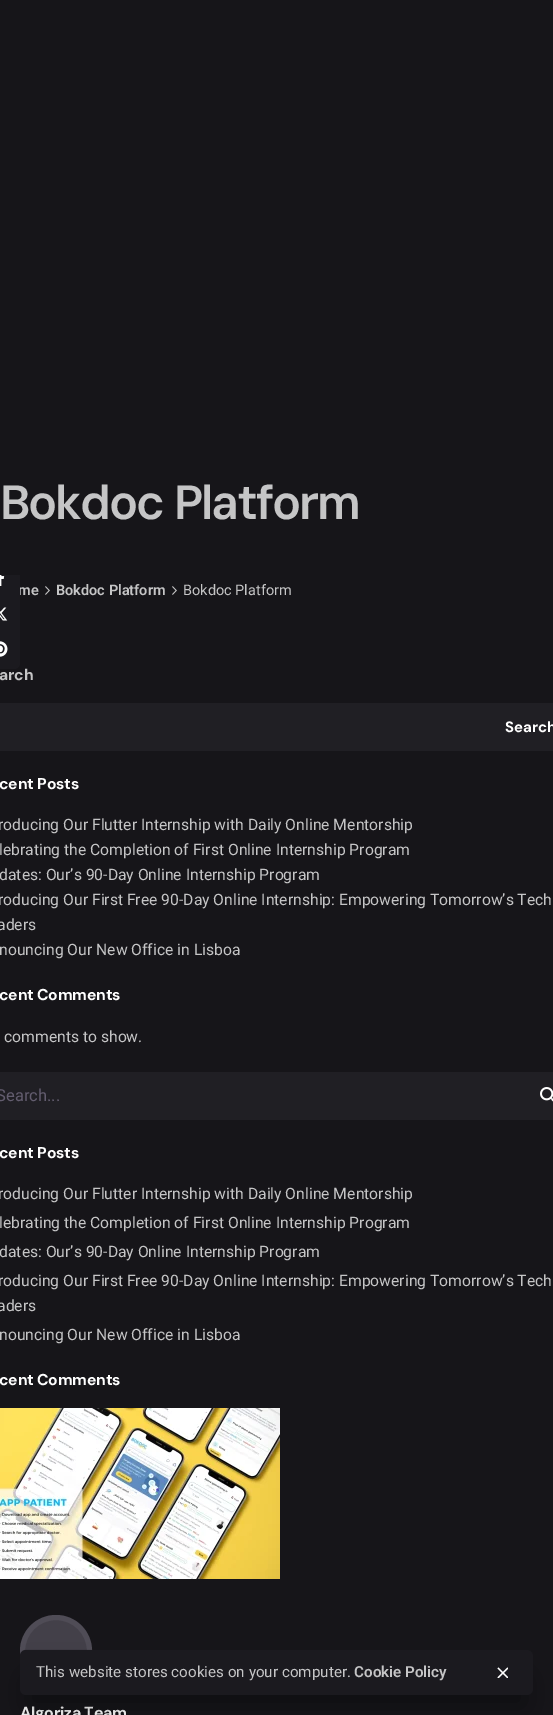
%!PS-Adobe-3.0
%%BoundingBox: 0 0 553 1715
%%LanguageLevel: 3
%%Pages: 1
%%EndComments
%%BeginProlog
/setink { dup -16 bitshift 255 div exch dup -8 bitshift 255 and 255 div exch 255 and 255 div setrgbcolor } def
/usefont { [ exch dup neg 0 0 3 -1 roll 0 0 ] selectfont } def
/setalpha { dup .setfillconstantalpha .setstrokeconstantalpha } def
/disc { newpath 0 360 arc closepath } def
/rrect { 5 dict begin { /r /h /w /y /x } { exch def } forall
  x r add y moveto x w add y 2 copy h add r arct x w add y h add x 1 index r arct
  x y h add x y r arct x y 2 copy exch w add exch r arct closepath end } def
/softshadow { 12 dict begin { /a /b /q /h /w /y /x } { exch def } forall gsave /was 0 def
  9 -2 -9 { dup b mul 4 div /e exch def 1 sub .425 mul 2.718 exch exp 1 add a .99 .min exch div /now exch def
    1 1 now sub 1 was sub div sub setalpha /was now def
    w h .min e 2 mul add 0 gt { x e sub y e sub w e 2 mul add h e 2 mul add
      q e add b .6 mul add w h .min 2 div e add .min 0 .max rrect fill } if } for grestore end } def
/drawimage { 5 dict begin { /h /w /y /x /name } { exch def } forall
  gsave x y translate w h scale
  w h 8 [w 0 0 h 0 0] name (r) file false 3 colorimage grestore end } def
%%EndProlog
%%BeginSetup
<< /PageSize [553 1715] /PageUsesTransparency true >> setpagedevice
%%EndSetup
%%Page: 1 1
0 .pushpdf14devicefilter
0 1715 translate 1 -1 scale
4 setmiterlimit
16#161519 setink
0 0 553 1715 rectfill
/DMSans-SemiBold 48 usefont
16#C5C5C6 setink
0 519 moveto 2 0 32 -2.2 0 (Bokdoc Platform) awidthshow
/Roboto-SemiBold 14.5 usefont
18 595 moveto (me) show
16#1B1A1F setink
-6 559 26 110 6 rrect fill
16#161519 setink
0 559 20 16 rectfill
(img1.raw) 0 575 5 11 drawimage
(img2.raw) 0 607 8 14 drawimage
(img3.raw) 0 641 8 16 drawimage
(img4.raw) 45 586 5 9 drawimage
16#C5C5C6 setink
56 595 moveto (Bokdoc Platform) show
(img4.raw) 172 586 5 9 drawimage
/Roboto-Regular 14.5 usefont
183 595 moveto (Bokdoc Platform) show
/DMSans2-Bold 15.7 usefont
-1 680 moveto -0.2 0 (arch) ashow
16#201F24 setink
0 703 553 48 rectfill
/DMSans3-Bold 15 usefont
16#FFFFFF setink
505 732 moveto (Search) show
/DMSans2-Bold 15.7 usefont
-1 789 moveto -0.2 0 (cent Posts) ashow
/Roboto-Regular 15.7 usefont
16#C5C5C6 setink
[
    [(roducing Our Flutter Internship with Daily Online Mentorship) -2 830]
    [(lebrating the Completion of First Online Internship Program) -1 855]
    [(dates: Our’s 90-Day Online Internship Program) -1 880]
    [(roducing Our First Free 90-Day Online Internship: Empowering Tomorrow’s Tech) -2 905]
    [(aders) -3 930]
    [(nouncing Our New Office in Lisboa) -1 955]
] { aload pop moveto show } forall
/DMSans2-Bold 15.7 usefont
16#FFFFFF setink
-1 1000 moveto -0.2 0 (cent Comments) ashow
/Roboto-Regular 15.7 usefont
16#C5C5C6 setink
4 1042 moveto (comments to show.) show
16#201F24 setink
0 1072 553 48 rectfill
/Roboto-Regular 16.5 usefont
16#635D6F setink
-4 1101 moveto (Search...) show
(img5.raw) 540 1087 13 15 drawimage
/DMSans2-Bold 15.7 usefont
16#FFFFFF setink
-1 1158 moveto -0.2 0 (cent Posts) ashow
/Roboto-Regular 15.7 usefont
16#C5C5C6 setink
[
    [(roducing Our Flutter Internship with Daily Online Mentorship) -2 1199]
    [(lebrating the Completion of First Online Internship Program) -1 1228]
    [(dates: Our’s 90-Day Online Internship Program) -1 1257]
    [(roducing Our First Free 90-Day Online Internship: Empowering Tomorrow’s Tech) -2 1286]
    [(aders) -3 1311]
    [(nouncing Our New Office in Lisboa) -1 1340]
] { aload pop moveto show } forall
/DMSans2-Bold 15.7 usefont
16#FFFFFF setink
-1 1385 moveto -0.2 0 (cent Comments) ashow
(img6.raw) 0 1408 280 171 drawimage
16#434049 setink
56 1651 36 disc fill
0.15 setalpha
16#9690A2 setink
5 setlinewidth
56 1651 33.5 disc stroke
/DMSans-Bold 16 usefont
1 setalpha
16#FFFFFF setink
20 1718 moveto -0.25 0 (Algoriza Team) ashow
16#000000 setink
20 1650 513 45 6 0.5 0.25 softshadow
28 1678 497 29 0 16 0.35 softshadow
16#1B1A1F setink
20 1650 513 45 6 rrect fill
/Roboto-Regular 15.2 usefont
16#C5C5C6 setink
36 1677 moveto (This website stores cookies on your computer.) show
/Roboto-SemiBold 15.2 usefont
354 1677 moveto (Cookie Policy) show
(img7.raw) 497 1667 11 11 drawimage
.poppdf14devicefilter showpage
%%EOF
